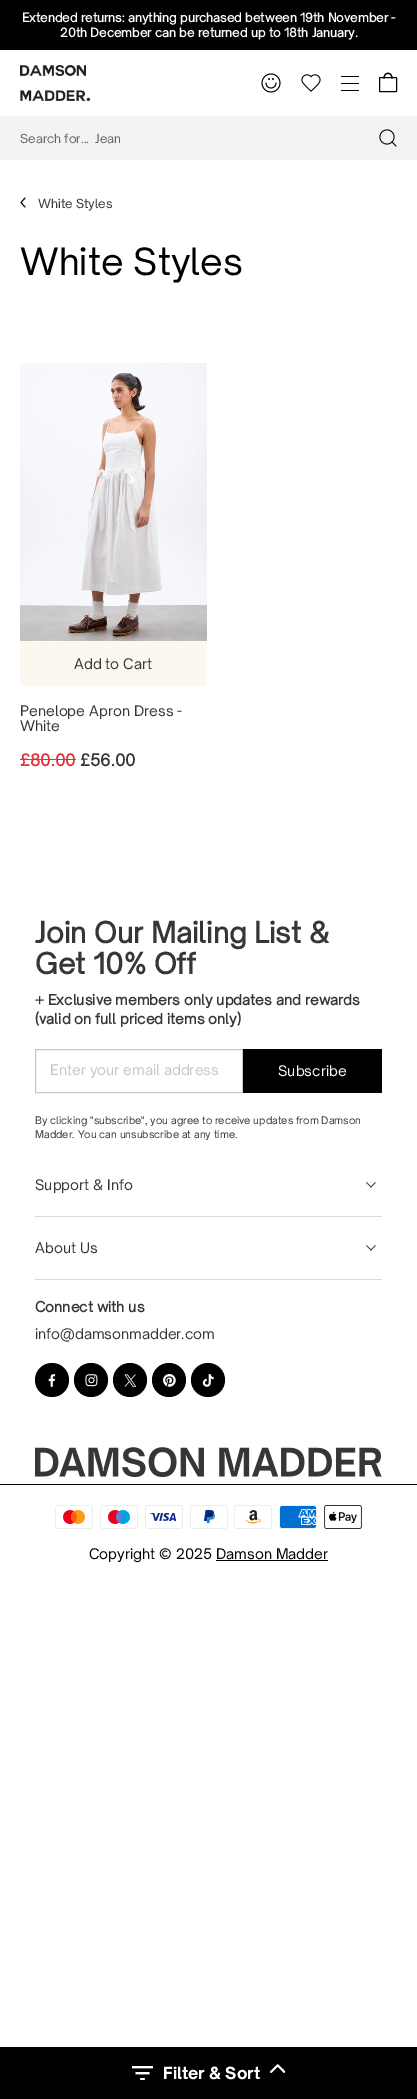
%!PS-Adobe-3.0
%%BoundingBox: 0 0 417 2099
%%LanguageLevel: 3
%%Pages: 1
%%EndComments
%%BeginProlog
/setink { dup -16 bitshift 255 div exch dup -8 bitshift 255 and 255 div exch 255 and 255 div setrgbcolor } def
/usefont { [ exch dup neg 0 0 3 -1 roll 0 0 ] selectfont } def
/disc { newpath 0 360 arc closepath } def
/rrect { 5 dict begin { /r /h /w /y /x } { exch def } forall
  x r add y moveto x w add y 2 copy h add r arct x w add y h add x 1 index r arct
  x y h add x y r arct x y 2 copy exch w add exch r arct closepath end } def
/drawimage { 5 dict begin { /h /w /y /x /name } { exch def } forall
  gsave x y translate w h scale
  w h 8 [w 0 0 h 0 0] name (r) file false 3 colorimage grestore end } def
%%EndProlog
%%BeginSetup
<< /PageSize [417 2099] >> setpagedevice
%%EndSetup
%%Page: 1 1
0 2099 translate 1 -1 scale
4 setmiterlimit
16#FFFFFF setink
0 0 417 2099 rectfill
16#000000 setink
0 0 417 50 rectfill
/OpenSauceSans-Bold 12 usefont
16#FFFFFF setink
22 22 moveto (Extended returns: anything purchased between 19th November -) show
60 37 moveto (20th December can be returned up to 18th January.) show
(img1.raw) 20 65 70 36 drawimage
(img2.raw) 261 73 20 20 drawimage
(img3.raw) 301 74 20 18 drawimage
[
    [341 76 18 1 16#000000]
    [341 83 18 1 16#000000]
    [341 90 18 1 16#000000]
] { aload pop setink rectfill } forall
379.5 77.5 17 14 0.5 rrect stroke
1.2 setlinewidth
1 setlinecap
1 setlinejoin
384 78 moveto 384 71.5 392 71.5 392 78 curveto stroke
16#F3F3F3 setink
0 116 417 44 rectfill
/OpenSauceSans-Regular 12 usefont
16#666666 setink
20 143 moveto (Search for...) show
95 143 moveto (Jean) show
(img4.raw) 379 129 18 18 drawimage
16#111111 setink
1 setlinewidth
25 198 moveto 21 202.5 lineto 25 207 lineto stroke
16#363636 setink
38 208 moveto (White Styles) show
/OpenSauceSans-Regular 36 usefont
16#000000 setink
20 275 moveto (White Styles) show
(img5.raw) 20 363 187 278 drawimage
16#FDF8EF setink
20 641 187 45 rectfill
/OpenSauceSans-Regular 14 usefont
16#363636 setink
[
    [(Add to Cart) 74 669]
    [(Penelope Apron Dress -) 20 716]
    [(White) 20 731]
] { aload pop moveto show } forall
/OpenSauceSans-Bold 16 usefont
16#DC323B setink
20 766 moveto (£80.00) show
20 759 56 1 rectfill
16#363636 setink
80 766 moveto (£56.00) show
16#000000 setink
0 2047 417 52 rectfill
(img6.raw) 132 2066 21 14 drawimage
/OpenSauceSans-ExtraBold 16 usefont
16#FFFFFF setink
163 2079 moveto (Filter & Sort) show
(img7.raw) 270 2064 15 9 drawimage
/OpenSauceSans-Bold 28 usefont
16#363636 setink
35 943 moveto (Join Our Mailing List &) show
35 974 moveto (Get 10% Off) show
/OpenSauceSans-Bold 14 usefont
35 1005 moveto (+ Exclusive members only updates and rewards) show
35 1024 moveto (\(valid on full priced items only\)) show
16#C7C7C7 setink
0 setlinecap
0 setlinejoin
35.5 1049.5 207 43 rectstroke
/OpenSauceSans-Regular 14 usefont
50 1075 moveto (Enter your email address) show
16#000000 setink
243 1049 139 44 rectfill
16#FFFFFF setink
278 1076 moveto (Subscribe) show
/OpenSauceSans-Regular 10 usefont
16#363636 setink
35 1124 moveto (By clicking "subscribe", you agree to receive updates from Damson) show
35 1138 moveto (Madder. You can unsubscribe at any time.) show
16#D9D9D9 setink
35 1216 347 1 rectfill
/OpenSauceSans-Regular 14 usefont
16#363636 setink
35 1190 moveto (Support & Info) show
(img8.raw) 366 1182 10 6 drawimage
16#D9D9D9 setink
35 1279 347 1 rectfill
16#363636 setink
35 1253 moveto (About Us) show
(img8.raw) 366 1245 10 6 drawimage
/OpenSauceSans-Bold 14 usefont
35 1312 moveto (Connect with us) show
/OpenSauceSans-Regular 14 usefont
35 1339 moveto (info@damsonmadder.com) show
16#000000 setink
52 1380 17 disc fill
(img9.raw) 48 1374 8 13 drawimage
91 1380 17 disc fill
(img10.raw) 85 1374 13 13 drawimage
130 1380 17 disc fill
(img11.raw) 124 1374 12 13 drawimage
169 1380 17 disc fill
(img12.raw) 163 1374 13 13 drawimage
208 1380 17 disc fill
(img13.raw) 202 1374 12 13 drawimage
(img14.raw) 35 1447 347 31 drawimage
0 1484 417 1 rectfill
(img15.raw) 55 1505 38 24 drawimage
(img16.raw) 100 1505 38 24 drawimage
(img17.raw) 145 1505 38 24 drawimage
(img18.raw) 190 1505 38 24 drawimage
(img19.raw) 234 1505 38 24 drawimage
(img20.raw) 279 1505 38 24 drawimage
(img21.raw) 324 1505 38 24 drawimage
89 1559 moveto (Copyright © 2025 Damson Madder) show
216 1560 112 1 rectfill
showpage
%%EOF
